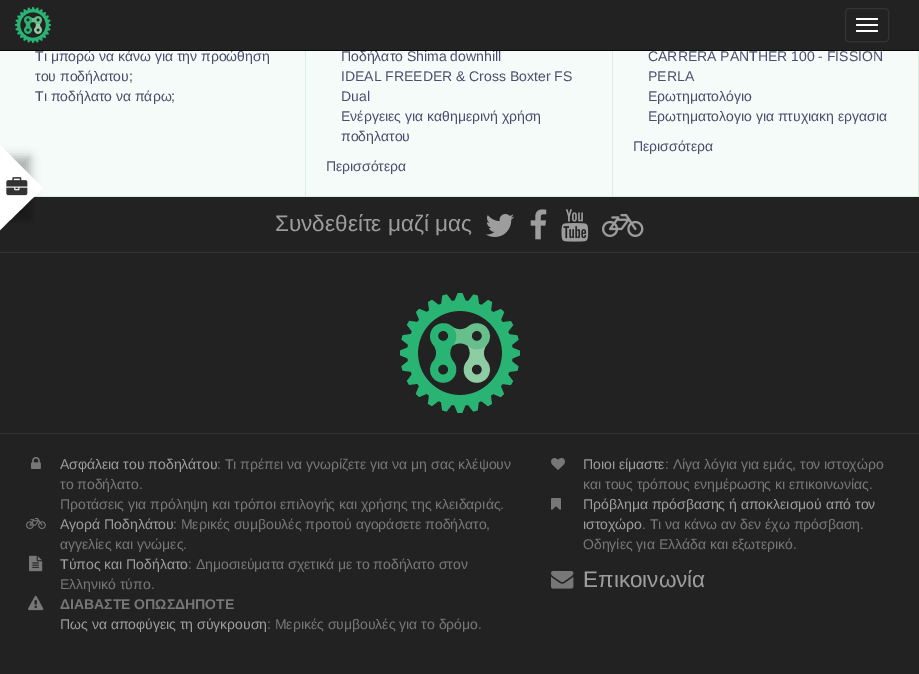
%!PS-Adobe-3.0
%%BoundingBox: 0 0 919 674
%%LanguageLevel: 3
%%Pages: 1
%%EndComments
%%BeginProlog
/setink { dup -16 bitshift 255 div exch dup -8 bitshift 255 and 255 div exch 255 and 255 div setrgbcolor } def
/usefont { [ exch dup neg 0 0 3 -1 roll 0 0 ] selectfont } def
/setalpha { dup .setfillconstantalpha .setstrokeconstantalpha } def
/rrect { 5 dict begin { /r /h /w /y /x } { exch def } forall
  x r add y moveto x w add y 2 copy h add r arct x w add y h add x 1 index r arct
  x y h add x y r arct x y 2 copy exch w add exch r arct closepath end } def
/softshadow { 12 dict begin { /a /b /q /h /w /y /x } { exch def } forall gsave /was 0 def
  9 -2 -9 { dup b mul 4 div /e exch def 1 sub .425 mul 2.718 exch exp 1 add a .99 .min exch div /now exch def
    1 1 now sub 1 was sub div sub setalpha /was now def
    w h .min e 2 mul add 0 gt { x e sub y e sub w e 2 mul add h e 2 mul add
      q e add b .6 mul add w h .min 2 div e add .min 0 .max rrect fill } if } for grestore end } def
/drawimage { 5 dict begin { /h /w /y /x /name } { exch def } forall
  gsave x y translate w h scale
  w h 8 [w 0 0 h 0 0] name (r) file false 3 colorimage grestore end } def
%%EndProlog
%%BeginSetup
<< /PageSize [919 674] /PageUsesTransparency true >> setpagedevice
%%EndSetup
%%Page: 1 1
0 .pushpdf14devicefilter
0 674 translate 1 -1 scale
4 setmiterlimit
16#222222 setink
0 0 919 674 rectfill
16#F4FBF8 setink
0 51 918 145 rectfill
/LiberationSans-Regular 14 usefont
16#4B4E6D setink
35 61 moveto (Τι μπορώ να κάνω για την προώθηση) show
341 61 moveto (Ποδήλατο Shima downhill) show
16#080808 setink
0 50 919 1 rectfill
(img1.raw) 15 7 36 36 drawimage
16#333333 setink
845.5 8.5 43 33 3.5 rrect stroke
16#FFFFFF setink
856 18 22 2 1 rrect fill
856 24 22 2 1 rrect fill
856 30 22 2 1 rrect fill
16#DBEEE6 setink
305 51 1 146 rectfill
33 196 273 1 rectfill
16#4B4E6D setink
35 81 moveto (του ποδήλατου;) show
35 101 moveto (Τι ποδήλατο να πάρω;) show
16#DBEEE6 setink
612 51 1 146 rectfill
306 196 307 1 rectfill
16#4B4E6D setink
[
    [(IDEAL FREEDER & Cross Boxter FS) 341 81]
    [(Dual) 341 101]
    [(Ενέργειες για καθημερινή χρήση) 341 121]
    [(ποδηλατου) 341 141]
    [(Περισσότερα) 326 171]
] { aload pop moveto show } forall
16#DBEEE6 setink
918 51 1 146 rectfill
613 196 306 1 rectfill
16#4B4E6D setink
[
    [(CARRERA PANTHER 100 - FISSION) 648 61]
    [(PERLA) 648 81]
    [(Ερωτηματολόγιο) 648 101]
    [(Ερωτηματολογιο για πτυχιακη εργασια) 648 121]
    [(Περισσότερα) 633 151]
] { aload pop moveto show } forall
16#000000 setink
-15 157 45 62 0 5 0.3 softshadow
16#FFFFFF setink
0 145 moveto 43 188 lineto -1 231 lineto -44 188 lineto closepath fill
(img2.raw) 6 177 22 19 drawimage
16#333333 setink
0 252 919 1 rectfill
/LiberationSans-Regular 22.5 usefont
16#9D9D9D setink
275 231 moveto (Συνδεθείτε μαζί μας) show
(img3.raw) 486 214 28 23 drawimage
(img4.raw) 530 209 17 31 drawimage
(img5.raw) 561 209 28 33 drawimage
(img6.raw) 602 214 42 23 drawimage
(img7.raw) 400 293 120 120 drawimage
16#333333 setink
0 433 919 1 rectfill
(img8.raw) 31 457 10 12 drawimage
/LiberationSans-Regular 14 usefont
16#9D9D9D setink
60 469 moveto (Ασφάλεια του ποδηλάτου) show
16#777777 setink
[
    [(: Tι πρέπει να γνωρίζετε για να μη σας κλέψουν) 217 469]
    [(το ποδήλατο.) 60 489]
    [(Προτάσεις για πρόληψη και τρόποι επιλογής και χρήσης της κλειδαριάς.) 60 509]
] { aload pop moveto show } forall
(img9.raw) 26 518 20 11 drawimage
16#9D9D9D setink
60 529 moveto (Αγορά Ποδηλάτου) show
16#777777 setink
173 529 moveto (: Μερικές συμβουλές προτού αγοράσετε ποδήλατο,) show
60 549 moveto (αγγελίες και γνώμες.) show
(img10.raw) 29 555 14 17 drawimage
16#9D9D9D setink
60 569 moveto (Τύπος και Ποδήλατο) show
16#777777 setink
188 569 moveto (: Δημοσιεύματα σχετικά με το ποδήλατο στον) show
60 589 moveto (Ελληνικό τύπο.) show
(img11.raw) 28 595 16 16 drawimage
/LiberationSans-Bold 14 usefont
60 609 moveto (ΔΙΑΒΑΣΤΕ ΟΠΩΣΔΗΠΟΤΕ) show
/LiberationSans-Regular 14 usefont
16#9D9D9D setink
60 629 moveto (Πως να αποφύγεις τη σύγκρουση) show
16#777777 setink
267 629 moveto (: Μερικές συμβουλές για το δρόμο.) show
(img12.raw) 551 458 14 12 drawimage
16#9D9D9D setink
583 469 moveto (Ποιοι είμαστε) show
16#777777 setink
665 469 moveto (: Λίγα λόγια για εμάς, τον ιστοχώρο) show
583 489 moveto (και τους τρόπους ενημέρωσης κι επικοινωνίας.) show
(img13.raw) 551 498 10 12 drawimage
16#9D9D9D setink
583 509 moveto (Πρόβλημα πρόσβασης ή αποκλεισμού από τον) show
583 529 moveto (ιστοχώρο) show
16#777777 setink
642 529 moveto (. Τι να κάνω αν δεν έχω πρόσβαση.) show
583 549 moveto (Οδηγίες για Ελλάδα και εξωτερικό.) show
(img14.raw) 551 571 23 18 drawimage
/LiberationSans-Regular 22.5 usefont
16#9D9D9D setink
583 587 moveto (Επικοινωνία) show
.poppdf14devicefilter showpage
%%EOF
